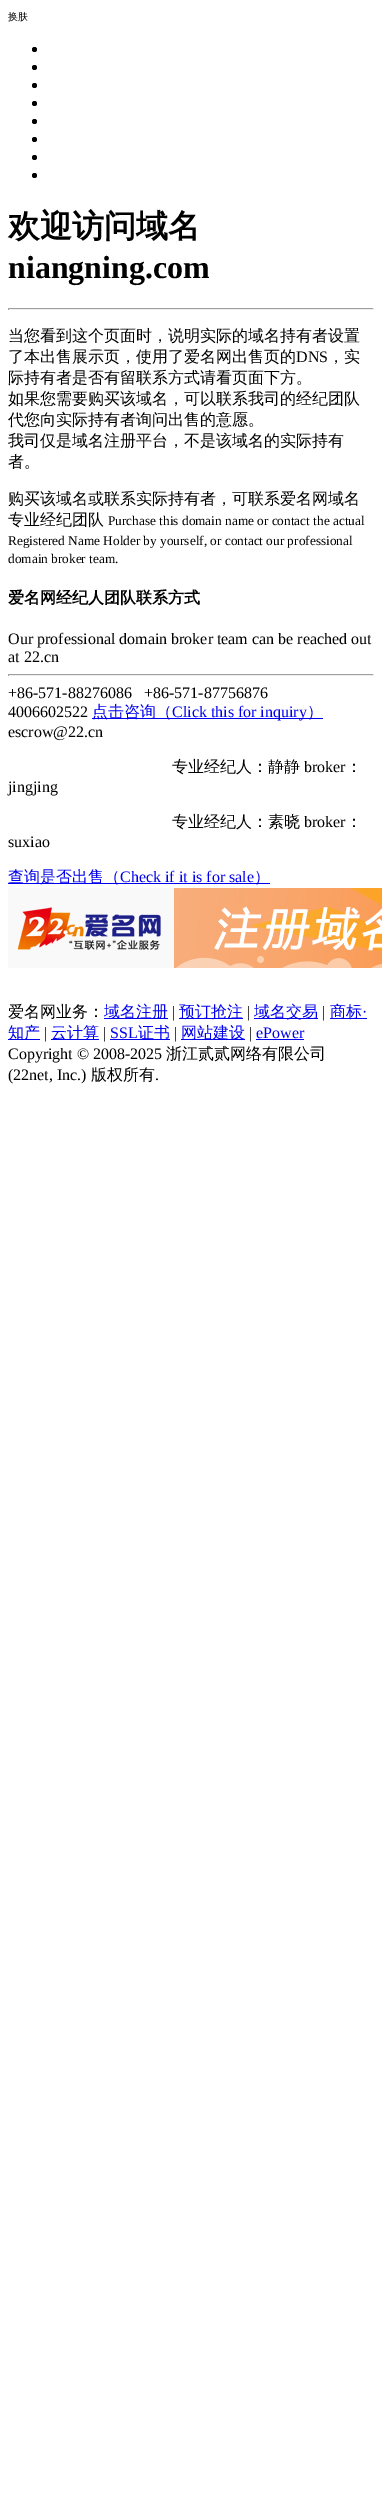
%!PS-Adobe-3.0
%%BoundingBox: 0 0 382 2516
%%LanguageLevel: 3
%%Pages: 1
%%EndComments
%%BeginProlog
/setink { dup -16 bitshift 255 div exch dup -8 bitshift 255 and 255 div exch 255 and 255 div setrgbcolor } def
/usefont { [ exch dup neg 0 0 3 -1 roll 0 0 ] selectfont } def
/disc { newpath 0 360 arc closepath } def
/drawimage { 5 dict begin { /h /w /y /x /name } { exch def } forall
  gsave x y translate w h scale
  w h 8 [w 0 0 h 0 0] name (r) file false 3 colorimage grestore end } def
%%EndProlog
%%BeginSetup
<< /PageSize [382 2516] >> setpagedevice
%%EndSetup
%%Page: 1 1
0 2516 translate 1 -1 scale
4 setmiterlimit
16#FFFFFF setink
0 0 382 2516 rectfill
/WenQuanYiZenHei-Medium 10 usefont
16#000000 setink
8 20 moveto (换肤) show
34.5 49.5 2.5 disc fill
34.5 67.5 2.5 disc fill
34.5 85.5 2.5 disc fill
34.5 103.5 2.5 disc fill
34.5 121.5 2.5 disc fill
34.5 139.5 2.5 disc fill
34.5 157.5 2.5 disc fill
34.5 175.5 2.5 disc fill
/WenQuanYiZenHei-Bold 32 usefont
8 237 moveto (欢迎访问域名) show
/LiberationSerif-Bold 32 usefont
8 278 moveto (niangning.com) show
[
    [8 308 366 1 16#9F9F9F]
    [373 308 1 2 16#EEEEEE]
    [8 309 366 1 16#EEEEEE]
    [8 308 1 2 16#9F9F9F]
] { aload pop setink rectfill } forall
/WenQuanYiZenHei-Medium 16 usefont
16#000000 setink
8 341 moveto (当您看到这个页面时，说明实际的域名持有者设置) show
8 362 moveto (了本出售展示页，使用了爱名网出售页的) show
/LiberationSerif-Regular 16 usefont
296 362 moveto (DNS) show
/WenQuanYiZenHei-Medium 16 usefont
[
    [(，实) 328 362]
    [(际持有者是否有留联系方式请看页面下方。) 8 383]
    [(如果您需要购买该域名，可以联系我司的经纪团队) 8 404]
    [(代您向实际持有者询问出售的意愿。) 8 425]
    [(我司仅是域名注册平台，不是该域名的实际持有) 8 446]
    [(者。) 8 467]
    [(购买该域名或联系实际持有者，可联系爱名网域名) 8 504]
    [(专业经纪团队) 8 525]
] { aload pop moveto show } forall
/LiberationSerif-Regular 13.3 usefont
[
    [(Purchase this domain name or contact the actual) 108 525]
    [(Registered Name Holder by yourself, or contact our professional) 8 545]
    [(domain broker team.) 8 563]
] { aload pop moveto show } forall
/WenQuanYiZenHei-Bold 16 usefont
8 603 moveto (爱名网经纪人团队联系方式) show
/LiberationSerif-Regular 16 usefont
8 644 moveto (Our professional domain broker team can be reached out) show
8 662 moveto (at 22.cn) show
[
    [8 674 366 1 16#9F9F9F]
    [373 674 1 2 16#EEEEEE]
    [8 675 366 1 16#EEEEEE]
    [8 674 1 2 16#9F9F9F]
] { aload pop setink rectfill } forall
16#000000 setink
[
    [(+86-571-88276086) 8 698]
    [(+86-571-87756876) 144 698]
    [(4006602522) 8 717]
] { aload pop moveto show } forall
16#0000EE setink
92 718 231 1 rectfill
/WenQuanYiZenHei-Medium 16 usefont
92 717 moveto (点击咨询（) show
/LiberationSerif-Regular 16 usefont
172 717 moveto (Click this for inquiry) show
/WenQuanYiZenHei-Medium 16 usefont
307 717 moveto (）) show
/LiberationSerif-Regular 16 usefont
16#000000 setink
8 737 moveto (escrow@22.cn) show
/WenQuanYiZenHei-Medium 16 usefont
172 772 moveto (专业经纪人：静静) show
/LiberationSerif-Regular 16 usefont
304 772 moveto (broker) show
/WenQuanYiZenHei-Medium 16 usefont
346 772 moveto (：) show
/LiberationSerif-Regular 16 usefont
8 792 moveto (jingjing) show
/WenQuanYiZenHei-Medium 16 usefont
172 827 moveto (专业经纪人：素晓) show
/LiberationSerif-Regular 16 usefont
304 827 moveto (broker) show
/WenQuanYiZenHei-Medium 16 usefont
346 827 moveto (：) show
/LiberationSerif-Regular 16 usefont
8 847 moveto (suxiao) show
16#0000EE setink
8 883 262 1 rectfill
/WenQuanYiZenHei-Medium 16 usefont
8 882 moveto (查询是否出售（) show
/LiberationSerif-Regular 16 usefont
120 882 moveto (Check if it is for sale) show
/WenQuanYiZenHei-Medium 16 usefont
254 882 moveto (）) show
(img1.raw) 8 888 374 80 drawimage
16#000000 setink
8 1017 moveto (爱名网业务：) show
16#0000EE setink
104 1018 64 1 rectfill
104 1017 moveto (域名注册) show
/LiberationSerif-Regular 16 usefont
16#000000 setink
172 1017 moveto (|) show
16#0000EE setink
179 1018 64 1 rectfill
/WenQuanYiZenHei-Medium 16 usefont
179 1017 moveto (预订抢注) show
/LiberationSerif-Regular 16 usefont
16#000000 setink
247 1017 moveto (|) show
16#0000EE setink
254 1018 64 1 rectfill
/WenQuanYiZenHei-Medium 16 usefont
254 1017 moveto (域名交易) show
/LiberationSerif-Regular 16 usefont
16#000000 setink
322 1017 moveto (|) show
16#0000EE setink
330 1018 37 1 rectfill
/WenQuanYiZenHei-Medium 16 usefont
330 1017 moveto (商标) show
/LiberationSerif-Regular 16 usefont
362 1017 moveto (·) show
8 1039 32 1 rectfill
/WenQuanYiZenHei-Medium 16 usefont
8 1038 moveto (知产) show
/LiberationSerif-Regular 16 usefont
16#000000 setink
44 1038 moveto (|) show
16#0000EE setink
51 1039 48 1 rectfill
/WenQuanYiZenHei-Medium 16 usefont
51 1038 moveto (云计算) show
/LiberationSerif-Regular 16 usefont
16#000000 setink
103 1038 moveto (|) show
16#0000EE setink
110 1038 moveto (SSL) show
110 1039 60 1 rectfill
/WenQuanYiZenHei-Medium 16 usefont
138 1038 moveto (证书) show
/LiberationSerif-Regular 16 usefont
16#000000 setink
174 1038 moveto (|) show
16#0000EE setink
181 1039 64 1 rectfill
/WenQuanYiZenHei-Medium 16 usefont
181 1038 moveto (网站建设) show
/LiberationSerif-Regular 16 usefont
16#000000 setink
249 1038 moveto (|) show
16#0000EE setink
256 1038 moveto (ePower) show
256 1039 48 1 rectfill
16#000000 setink
8 1059 moveto (Copyright © 2008-2025) show
/WenQuanYiZenHei-Medium 16 usefont
166 1059 moveto (浙江贰贰网络有限公司) show
/LiberationSerif-Regular 16 usefont
8 1080 moveto (\(22net, Inc.\)) show
/WenQuanYiZenHei-Medium 16 usefont
91 1080 moveto (版权所有) show
/LiberationSerif-Regular 16 usefont
155 1080 moveto (.) show
showpage
%%EOF
